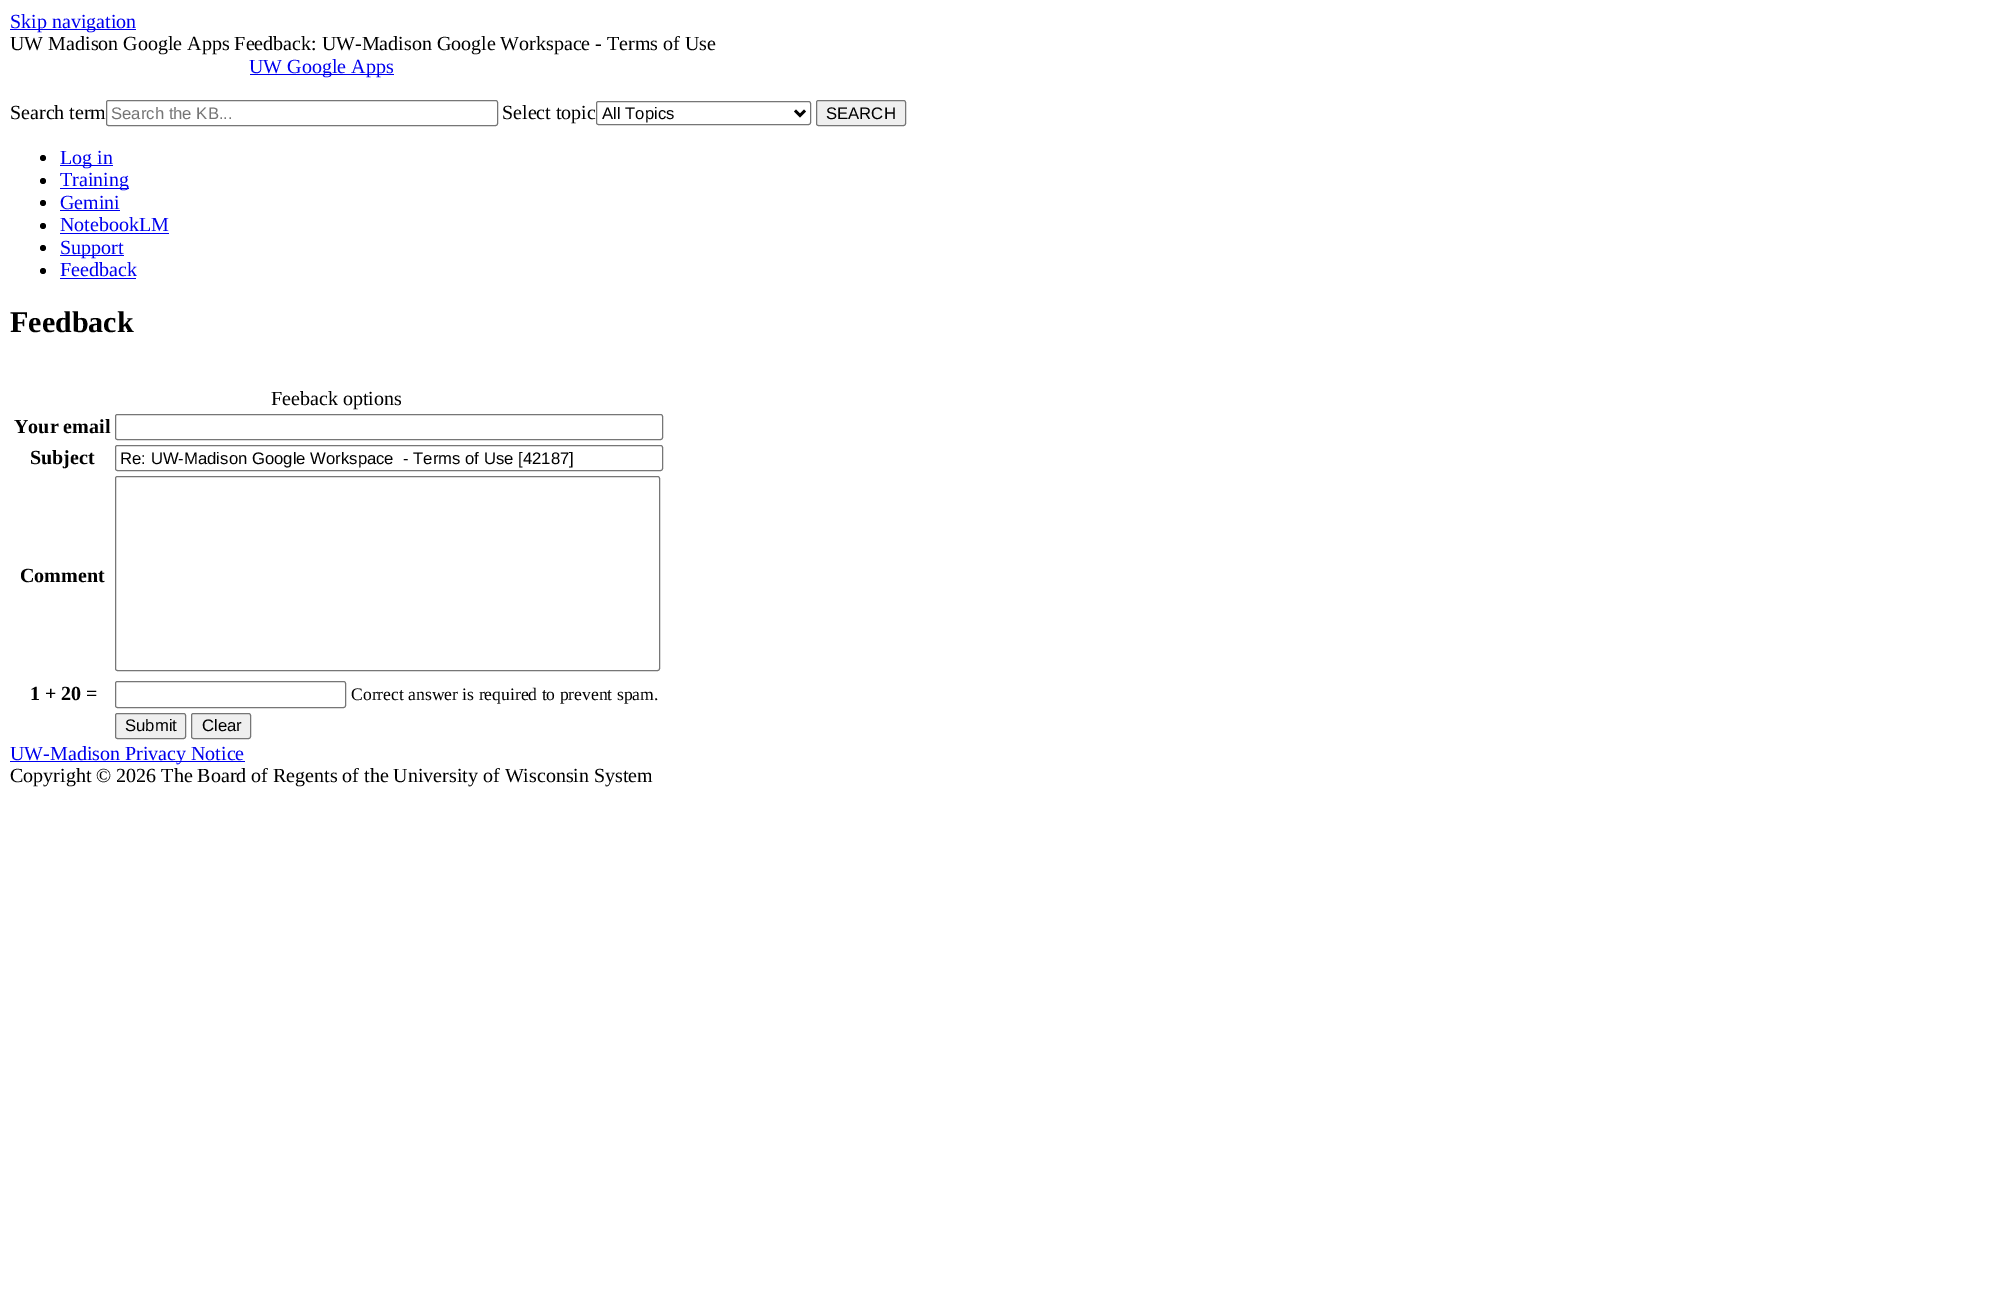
%!PS-Adobe-3.0
%%BoundingBox: 0 0 2009 1305
%%LanguageLevel: 3
%%Pages: 1
%%EndComments
%%BeginProlog
/setink { dup -16 bitshift 255 div exch dup -8 bitshift 255 and 255 div exch 255 and 255 div setrgbcolor } def
/usefont { [ exch dup neg 0 0 3 -1 roll 0 0 ] selectfont } def
/disc { newpath 0 360 arc closepath } def
/rrect { 5 dict begin { /r /h /w /y /x } { exch def } forall
  x r add y moveto x w add y 2 copy h add r arct x w add y h add x 1 index r arct
  x y h add x y r arct x y 2 copy exch w add exch r arct closepath end } def
%%EndProlog
%%BeginSetup
<< /PageSize [2009 1305] >> setpagedevice
%%EndSetup
%%Page: 1 1
0 1305 translate 1 -1 scale
4 setmiterlimit
16#FFFFFF setink
0 0 2009 1305 rectfill
16#0000EE setink
10 29 126 1 rectfill
/LiberationSerif-Regular 20 usefont
10 28 moveto (Skip navigation) show
16#000000 setink
10 50 moveto (UW Madison Google Apps Feedback: UW-Madison Google Workspace - Terms of Use) show
16#0000EE setink
250 74 144 1 rectfill
249 73 moveto (UW Google Apps) show
16#000000 setink
10 119 moveto (Search term) show
16#767676 setink
106.5 100.5 391 25 2 rrect stroke
/LiberationSans-Regular 16.7 usefont
16#757575 setink
111 119 moveto (Search the KB...) show
/LiberationSerif-Regular 20 usefont
16#000000 setink
502 119 moveto (Select topic) show
16#767676 setink
596.5 101.5 214 23 2 rrect stroke
16#000000 setink
2.5 setlinewidth
795 110.5 moveto 800 115.5 lineto 805 110.5 lineto stroke
/LiberationSans-Regular 16.7 usefont
602 119 moveto (All Topics) show
16#EFEFEF setink
816.5 100.5 89 25 2 rrect gsave fill grestore
16#767676 setink
1 setlinewidth
stroke
16#000000 setink
826 119 moveto (SEARCH) show
43 158 3 disc fill
16#0000EE setink
60 165 53 1 rectfill
/LiberationSerif-Regular 20 usefont
60 164 moveto (Log in) show
16#000000 setink
43 181 3 disc fill
16#0000EE setink
60 188 69 1 rectfill
60 186 moveto (Training) show
16#000000 setink
43 203 3 disc fill
16#0000EE setink
60 209 moveto (Gemini) show
60 210 60 1 rectfill
16#000000 setink
43 226 3 disc fill
16#0000EE setink
60 231 moveto (NotebookLM) show
60 233 109 1 rectfill
16#000000 setink
43 248 3 disc fill
16#0000EE setink
60 255 64 1 rectfill
60 254 moveto (Support) show
16#000000 setink
43 271 3 disc fill
16#0000EE setink
60 276 moveto (Feedback) show
60 278 76 1 rectfill
/LiberationSerif-Bold 30 usefont
16#000000 setink
10 332 moveto (Feedback) show
/LiberationSerif-Regular 20 usefont
271 405 moveto (Feeback options) show
/LiberationSerif-Bold 20 usefont
14 433 moveto (Your email) show
16#767676 setink
115.5 414.5 547 25 2 rrect stroke
16#000000 setink
30 464 moveto (Subject) show
16#767676 setink
115.5 445.5 547 25 2 rrect stroke
/LiberationSans-Regular 16.7 usefont
16#000000 setink
120 464 moveto (Re: UW-Madison Google Workspace  - Terms of Use [42187]) show
/LiberationSerif-Bold 20 usefont
20 582 moveto (Comment) show
16#767676 setink
115.5 476.5 544 194 2 rrect stroke
16#000000 setink
30 700 moveto (1 + 20 =) show
16#767676 setink
115.5 681.5 230 26 2 rrect stroke
/LiberationSerif-Regular 17.6 usefont
16#000000 setink
351 700 moveto (Correct answer is required to prevent spam.) show
16#EFEFEF setink
115.5 713.5 70 25 2 rrect gsave fill grestore
16#767676 setink
stroke
/LiberationSans-Regular 16.7 usefont
16#000000 setink
125 731 moveto (Submit) show
16#EFEFEF setink
191.5 713.5 59 25 2 rrect gsave fill grestore
16#767676 setink
stroke
16#000000 setink
202 731 moveto (Clear) show
16#0000EE setink
10 761 235 1 rectfill
/LiberationSerif-Regular 20 usefont
10 760 moveto (UW-Madison Privacy Notice) show
16#000000 setink
10 782 moveto (Copyright © 2026 The Board of Regents of the University of Wisconsin System) show
showpage
%%EOF
